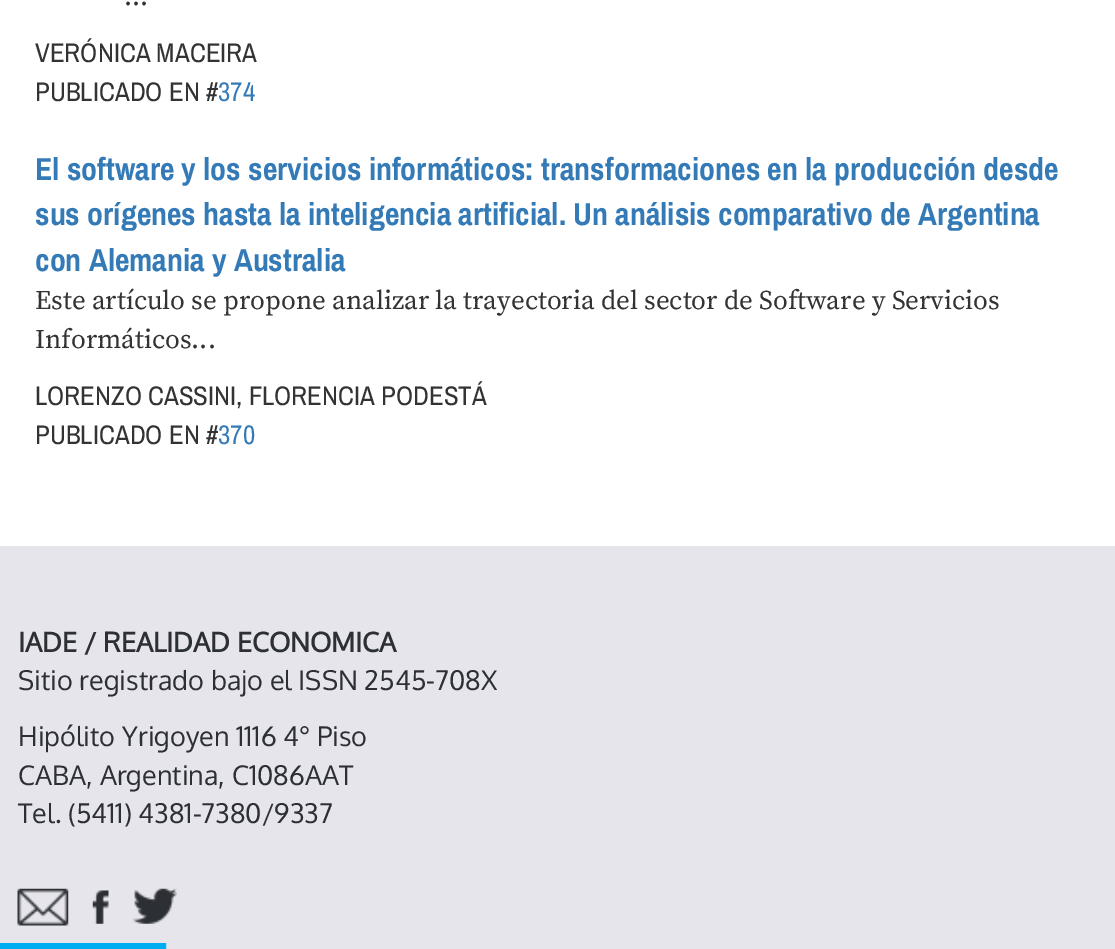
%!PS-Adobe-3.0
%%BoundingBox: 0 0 1115 949
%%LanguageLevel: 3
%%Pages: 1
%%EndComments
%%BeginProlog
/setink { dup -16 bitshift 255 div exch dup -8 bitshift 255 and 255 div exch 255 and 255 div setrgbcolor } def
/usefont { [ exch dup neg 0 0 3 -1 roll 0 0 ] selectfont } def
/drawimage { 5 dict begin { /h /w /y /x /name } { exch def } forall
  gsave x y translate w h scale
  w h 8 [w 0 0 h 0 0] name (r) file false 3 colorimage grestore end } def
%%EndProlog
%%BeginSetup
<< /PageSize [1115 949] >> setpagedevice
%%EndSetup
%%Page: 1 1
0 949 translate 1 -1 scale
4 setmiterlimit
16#FFFFFF setink
0 0 1115 949 rectfill
/SourceSerifPro-Regular 26.95 usefont
16#333333 setink
124 5 moveto (...) show
/ArchivoNarrow-Regular 26.95 usefont
35 62 moveto (VERÓNICA MACEIRA) show
35 101 moveto (PUBLICADO EN #) show
16#337AB7 setink
218 101 moveto (374) show
/ArchivoNarrow-Bold 31.85 usefont
[
    [(El software y los servicios informáticos: transformaciones en la producción desde) 35 180]
    [(sus orígenes hasta la inteligencia artificial. Un análisis comparativo de Argentina) 35 225]
    [(con Alemania y Australia) 35 271]
] { aload pop moveto show } forall
/SourceSerifPro-Regular 26.95 usefont
16#333333 setink
35 309 moveto (Este artículo se propone analizar la trayectoria del sector de Software y Servicios) show
35 348 moveto (Informáticos...) show
/ArchivoNarrow-Regular 26.95 usefont
35 405 moveto (LORENZO CASSINI, FLORENCIA PODESTÁ) show
35 444 moveto (PUBLICADO EN #) show
16#337AB7 setink
218 444 moveto (370) show
16#E5E5EB setink
0 546 1115 403 rectfill
/Oxygen-Bold 26.95 usefont
16#2C2F33 setink
18 652 moveto (IADE / REALIDAD ECONOMICA) show
/Oxygen-Regular 26.95 usefont
[
    [(Sitio registrado bajo el ISSN 2545-708X) 18 690]
    [(Hipólito Yrigoyen 1116 4° Piso) 18 746]
    [(CABA, Argentina, C1086AAT) 18 785]
    [(Tel. \(5411\) 4381-7380/9337) 18 823]
] { aload pop moveto show } forall
(img1.raw) 17 888 52 38 drawimage
(img2.raw) 92 890 17 34 drawimage
(img3.raw) 133 888 44 36 drawimage
(img4.raw) 0 943 167 6 drawimage
showpage
%%EOF
